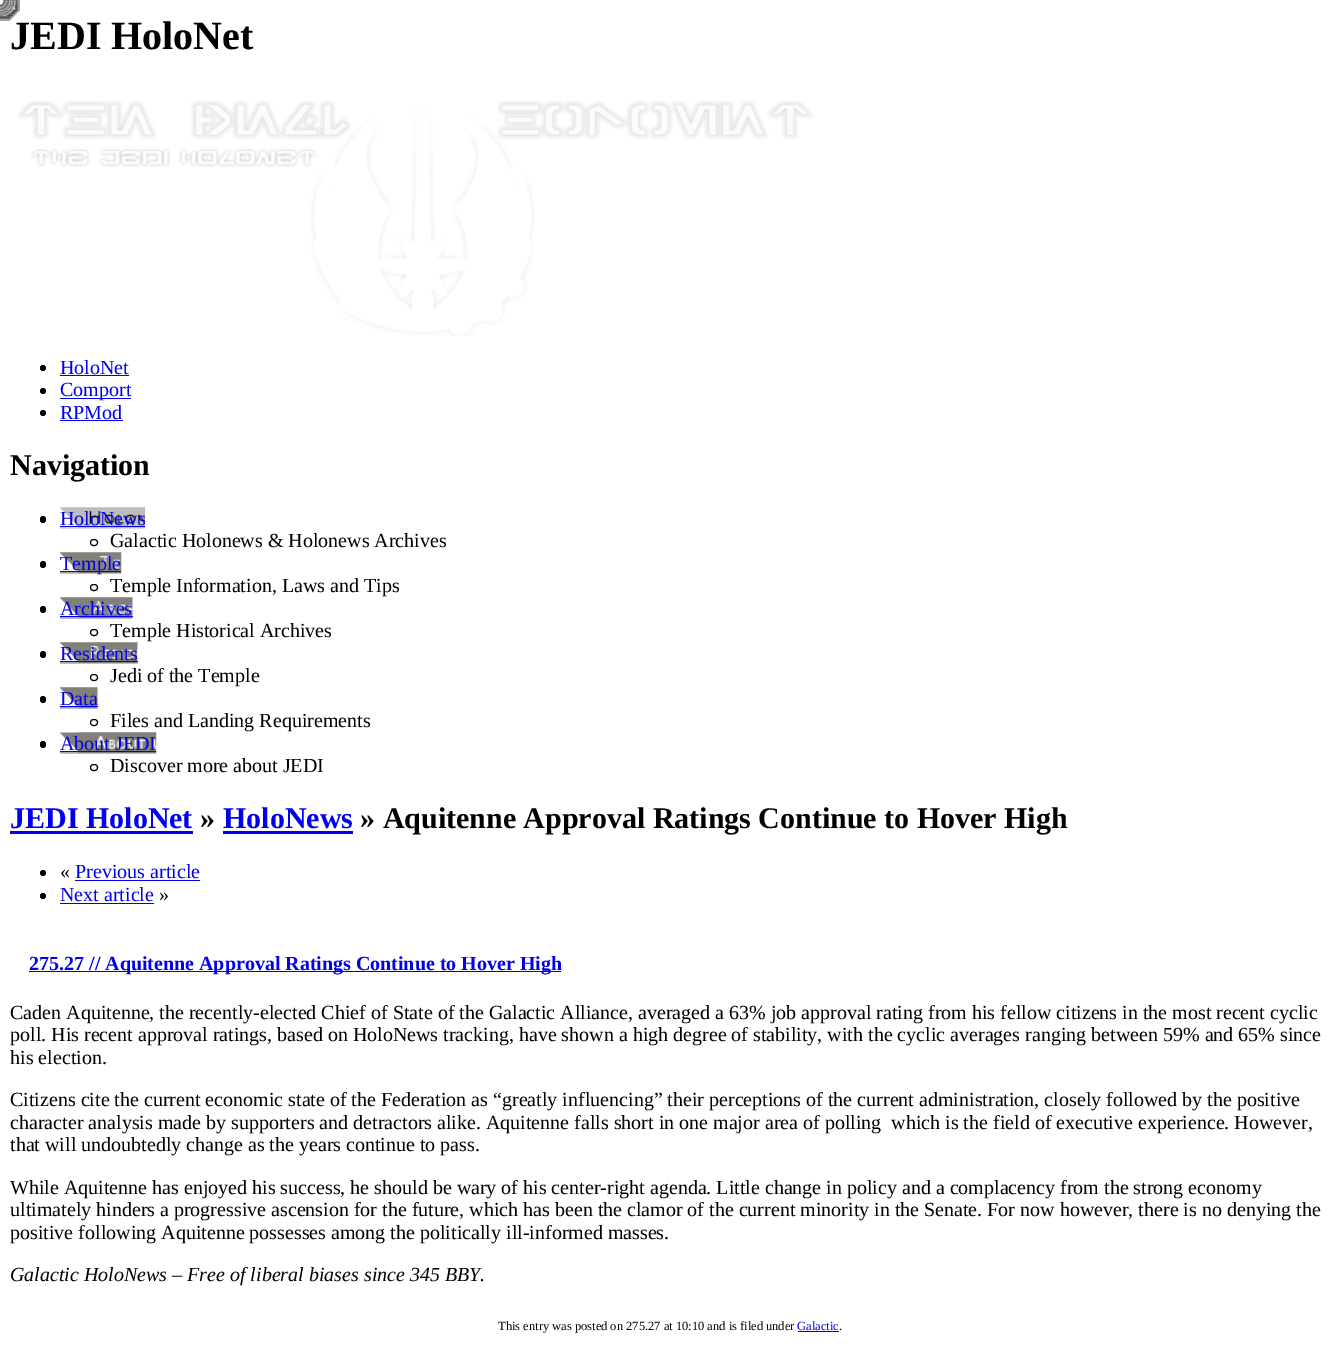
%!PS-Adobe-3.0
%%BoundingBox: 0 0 1340 1351
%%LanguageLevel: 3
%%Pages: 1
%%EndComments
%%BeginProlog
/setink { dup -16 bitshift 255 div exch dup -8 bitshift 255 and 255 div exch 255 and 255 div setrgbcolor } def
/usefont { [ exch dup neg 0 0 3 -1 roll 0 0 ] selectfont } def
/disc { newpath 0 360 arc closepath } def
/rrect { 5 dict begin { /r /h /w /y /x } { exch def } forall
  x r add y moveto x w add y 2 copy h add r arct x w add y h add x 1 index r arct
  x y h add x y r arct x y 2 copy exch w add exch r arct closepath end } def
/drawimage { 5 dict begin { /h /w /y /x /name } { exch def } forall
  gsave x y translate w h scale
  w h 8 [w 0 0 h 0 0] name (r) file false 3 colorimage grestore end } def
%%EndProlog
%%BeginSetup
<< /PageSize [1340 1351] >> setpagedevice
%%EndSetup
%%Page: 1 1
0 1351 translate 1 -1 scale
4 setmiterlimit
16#FFFFFF setink
0 0 1340 1351 rectfill
/LiberationSerif-Bold 40 usefont
16#000000 setink
10 49 moveto (JEDI HoloNet) show
(img1.raw) 18 101 796 235 drawimage
43 368 3 disc fill
/LiberationSerif-Regular 20 usefont
16#0000EE setink
60 374 moveto (HoloNet) show
60 375 69 1 rectfill
16#000000 setink
43 391 3 disc fill
16#0000EE setink
60 398 71 1 rectfill
60 396 moveto (Comport) show
16#000000 setink
43 413 3 disc fill
16#0000EE setink
60 419 moveto (RPMod) show
60 420 63 1 rectfill
/LiberationSerif-Bold 30 usefont
16#000000 setink
10 475 moveto (Navigation) show
(img2.raw) 60 507 85 22 drawimage
40 516 6 7 3 rrect fill
/LiberationSerif-Regular 20 usefont
16#0000EE setink
60 525 moveto (HoloNews) show
60 526 85 1 rectfill
16#000000 setink
90.5 539.5 7 6 3 rrect stroke
110 547 moveto (Galactic Holonews & Holonews Archives) show
(img3.raw) 60 552 62 22 drawimage
40 561 6 7 3 rrect fill
16#0000EE setink
60 571 61 1 rectfill
60 570 moveto (Temple) show
16#000000 setink
90.5 584.5 7 6 3 rrect stroke
110 592 moveto (Temple Information, Laws and Tips) show
(img4.raw) 60 597 73 22 drawimage
40 606 6 7 3 rrect fill
16#0000EE setink
60 615 moveto (Archives) show
60 616 73 1 rectfill
16#000000 setink
90.5 629.5 7 6 3 rrect stroke
110 637 moveto (Temple Historical Archives) show
(img5.raw) 60 642 78 22 drawimage
40 651 6 7 3 rrect fill
16#0000EE setink
60 660 moveto (Residents) show
60 661 78 1 rectfill
16#000000 setink
90.5 674.5 7 6 3 rrect stroke
110 682 moveto (Jedi of the Temple) show
(img6.raw) 60 687 38 22 drawimage
40 696 6 7 3 rrect fill
16#0000EE setink
60 705 moveto (Data) show
60 706 38 1 rectfill
16#000000 setink
90.5 719.5 7 6 3 rrect stroke
110 727 moveto (Files and Landing Requirements) show
(img7.raw) 60 732 97 22 drawimage
40 741 6 7 3 rrect fill
16#0000EE setink
60 750 moveto (About JEDI) show
60 751 96 1 rectfill
16#000000 setink
90.5 764.5 7 6 3 rrect stroke
110 772 moveto (Discover more about JEDI) show
/LiberationSerif-Bold 30 usefont
16#0000EE setink
10 828 moveto (JEDI HoloNet) show
10 831 183 3 rectfill
16#000000 setink
200 828 moveto (») show
16#0000EE setink
223 828 moveto (HoloNews) show
223 831 130 3 rectfill
16#000000 setink
360 828 moveto (» Aquitenne Approval Ratings Continue to Hover High) show
43 873 3 disc fill
/LiberationSerif-Regular 20 usefont
60 878 moveto («) show
16#0000EE setink
75 878 moveto (Previous article) show
75 880 125 1 rectfill
16#000000 setink
43 896 3 disc fill
16#0000EE setink
60 901 moveto (Next article) show
60 903 94 1 rectfill
16#000000 setink
159 901 moveto (») show
(img8.raw) 0 0 20 21 drawimage
16#0000EE setink
29 971 532 1 rectfill
/LiberationSerif-Bold 20 usefont
29 970 moveto (275.27 // Aquitenne Approval Ratings Continue to Hover High) show
/LiberationSerif-Regular 20 usefont
16#000000 setink
[
    [(Caden Aquitenne, the recently-elected Chief of State of the Galactic Alliance, averaged a 63% job approval rating from his fellow citizens in the most recent cyclic) 10 1019]
    [(poll. His recent approval ratings, based on HoloNews tracking, have shown a high degree of stability, with the cyclic averages ranging between 59% and 65% since) 10 1041]
    [(his election.) 10 1064]
    [(Citizens cite the current economic state of the Federation as “greatly influencing” their perceptions of the current administration, closely followed by the positive) 10 1106]
    [(character analysis made by supporters and detractors alike. Aquitenne falls short in one major area of polling  which is the field of executive experience. However,) 10 1129]
    [(that will undoubtedly change as the years continue to pass.) 10 1151]
    [(While Aquitenne has enjoyed his success, he should be wary of his center-right agenda. Little change in policy and a complacency from the strong economy) 10 1194]
    [(ultimately hinders a progressive ascension for the future, which has been the clamor of the current minority in the Senate. For now however, there is no denying the) 10 1216]
    [(positive following Aquitenne possesses among the politically ill-informed masses.) 10 1239]
] { aload pop moveto show } forall
/LiberationSerif-Italic 20 usefont
10 1281 moveto (Galactic HoloNews – Free of liberal biases since 345 BBY.) show
/LiberationSerif-Regular 12.5 usefont
498 1330 moveto (This entry was posted on 275.27 at 10:10 and is filed under) show
16#0000EE setink
797 1330 moveto (Galactic) show
798 1331 41 1 rectfill
16#000000 setink
839 1330 moveto (.) show
showpage
%%EOF
